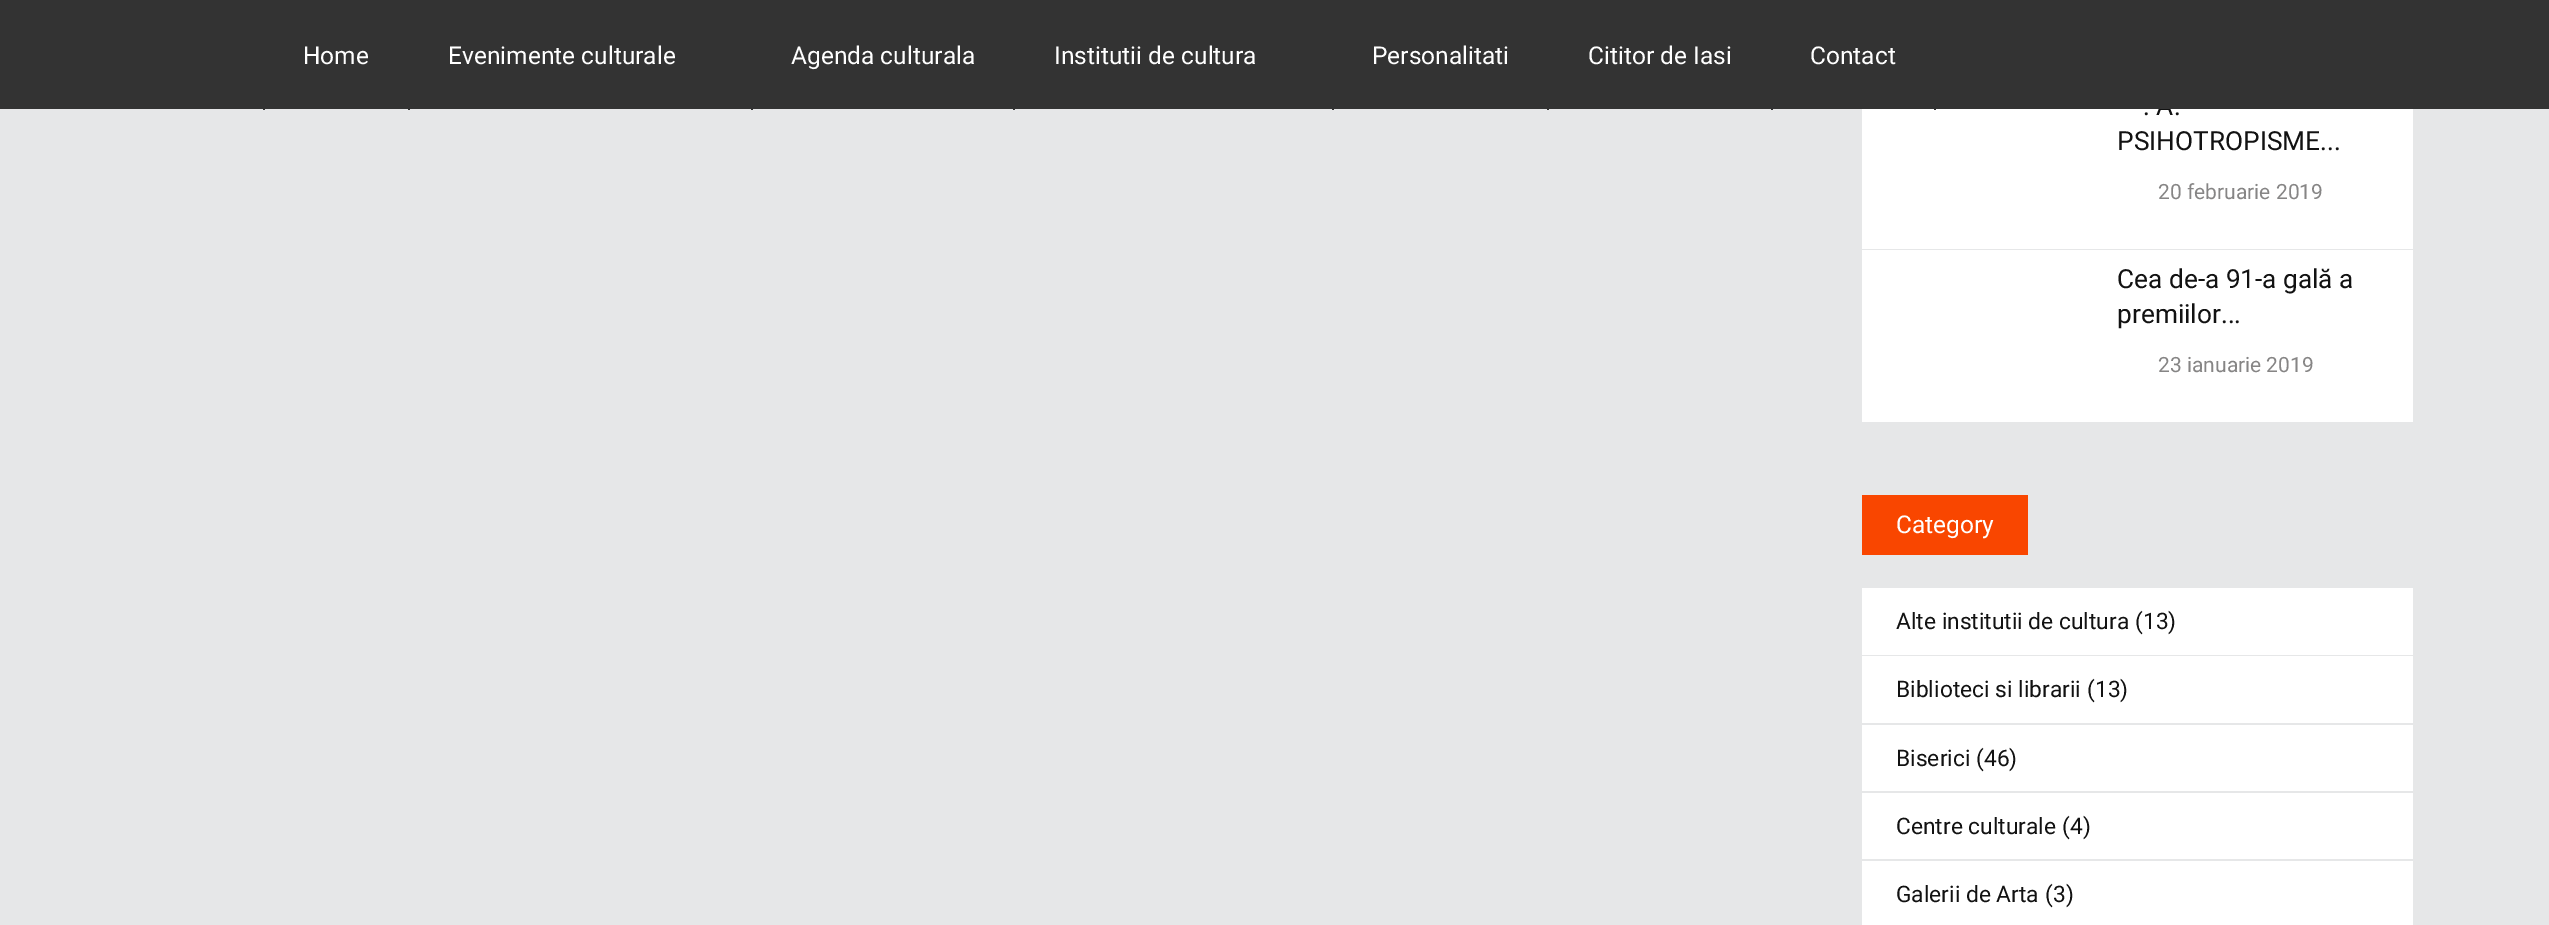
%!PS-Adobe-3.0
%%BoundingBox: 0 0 2549 925
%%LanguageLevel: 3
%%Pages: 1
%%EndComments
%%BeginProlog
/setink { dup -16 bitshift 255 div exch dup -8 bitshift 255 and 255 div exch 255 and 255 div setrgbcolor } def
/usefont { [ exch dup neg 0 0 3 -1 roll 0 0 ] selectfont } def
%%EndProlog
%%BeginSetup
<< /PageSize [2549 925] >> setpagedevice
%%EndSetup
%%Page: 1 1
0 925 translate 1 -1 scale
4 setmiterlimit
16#E6E7E8 setink
0 0 2549 925 rectfill
16#FFFFFF setink
1862 109 551 140 rectfill
/Roboto-Regular 26.25 usefont
16#121212 setink
2143 115 moveto (. A.) show
16#333333 setink
0 0 2549 109 rectfill
263 109 2 1 rectfill
/Roboto-Regular 24.5 usefont
16#FFFFFF setink
303 64 moveto (Home) show
16#333333 setink
408 109 2 1 rectfill
16#FFFFFF setink
448 64 moveto (Evenimente culturale) show
16#333333 setink
751 109 2 1 rectfill
16#FFFFFF setink
791 64 moveto (Agenda culturala) show
16#333333 setink
1013 109 2 1 rectfill
16#FFFFFF setink
1054 64 moveto (Institutii de cultura) show
16#333333 setink
1332 109 2 1 rectfill
16#FFFFFF setink
1372 64 moveto (Personalitati) show
16#333333 setink
1547 109 2 1 rectfill
16#FFFFFF setink
1588 64 moveto (Cititor de Iasi) show
16#333333 setink
1934 109 2 1 rectfill
1771 109 2 1 rectfill
16#FFFFFF setink
1810 64 moveto (Contact) show
/Roboto-Regular 26.25 usefont
16#121212 setink
2117 150 moveto (PSIHOTROPISME...) show
/Roboto-Regular 21 usefont
16#868585 setink
2158 199 moveto (20 februarie 2019) show
16#FFFFFF setink
1862 250 551 172 rectfill
/Roboto-Regular 26.25 usefont
16#121212 setink
2117 288 moveto (Cea de-a 91-a gală a) show
2117 323 moveto (premiilor...) show
/Roboto-Regular 21 usefont
16#868585 setink
2158 372 moveto (23 ianuarie 2019) show
16#F94600 setink
1862 495 166 60 rectfill
/Roboto-Regular 24.5 usefont
16#FFFFFF setink
1896 533 moveto (Category) show
1862 588 551 67 rectfill
/Roboto-Regular 22.75 usefont
16#121212 setink
1896 629 moveto (Alte institutii de cultura) show
2135 629 moveto (\(13\)) show
16#FFFFFF setink
1862 656 551 67 rectfill
16#121212 setink
1896 697 moveto (Biblioteci si librarii) show
2087 697 moveto (\(13\)) show
16#FFFFFF setink
1862 725 551 66 rectfill
16#121212 setink
1896 766 moveto (Biserici) show
1976 766 moveto (\(46\)) show
16#FFFFFF setink
1862 793 551 66 rectfill
16#121212 setink
1896 834 moveto (Centre culturale) show
2062 834 moveto (\(4\)) show
16#FFFFFF setink
1862 861 551 64 rectfill
16#121212 setink
1896 902 moveto (Galerii de Arta) show
2045 902 moveto (\(3\)) show
showpage
%%EOF
